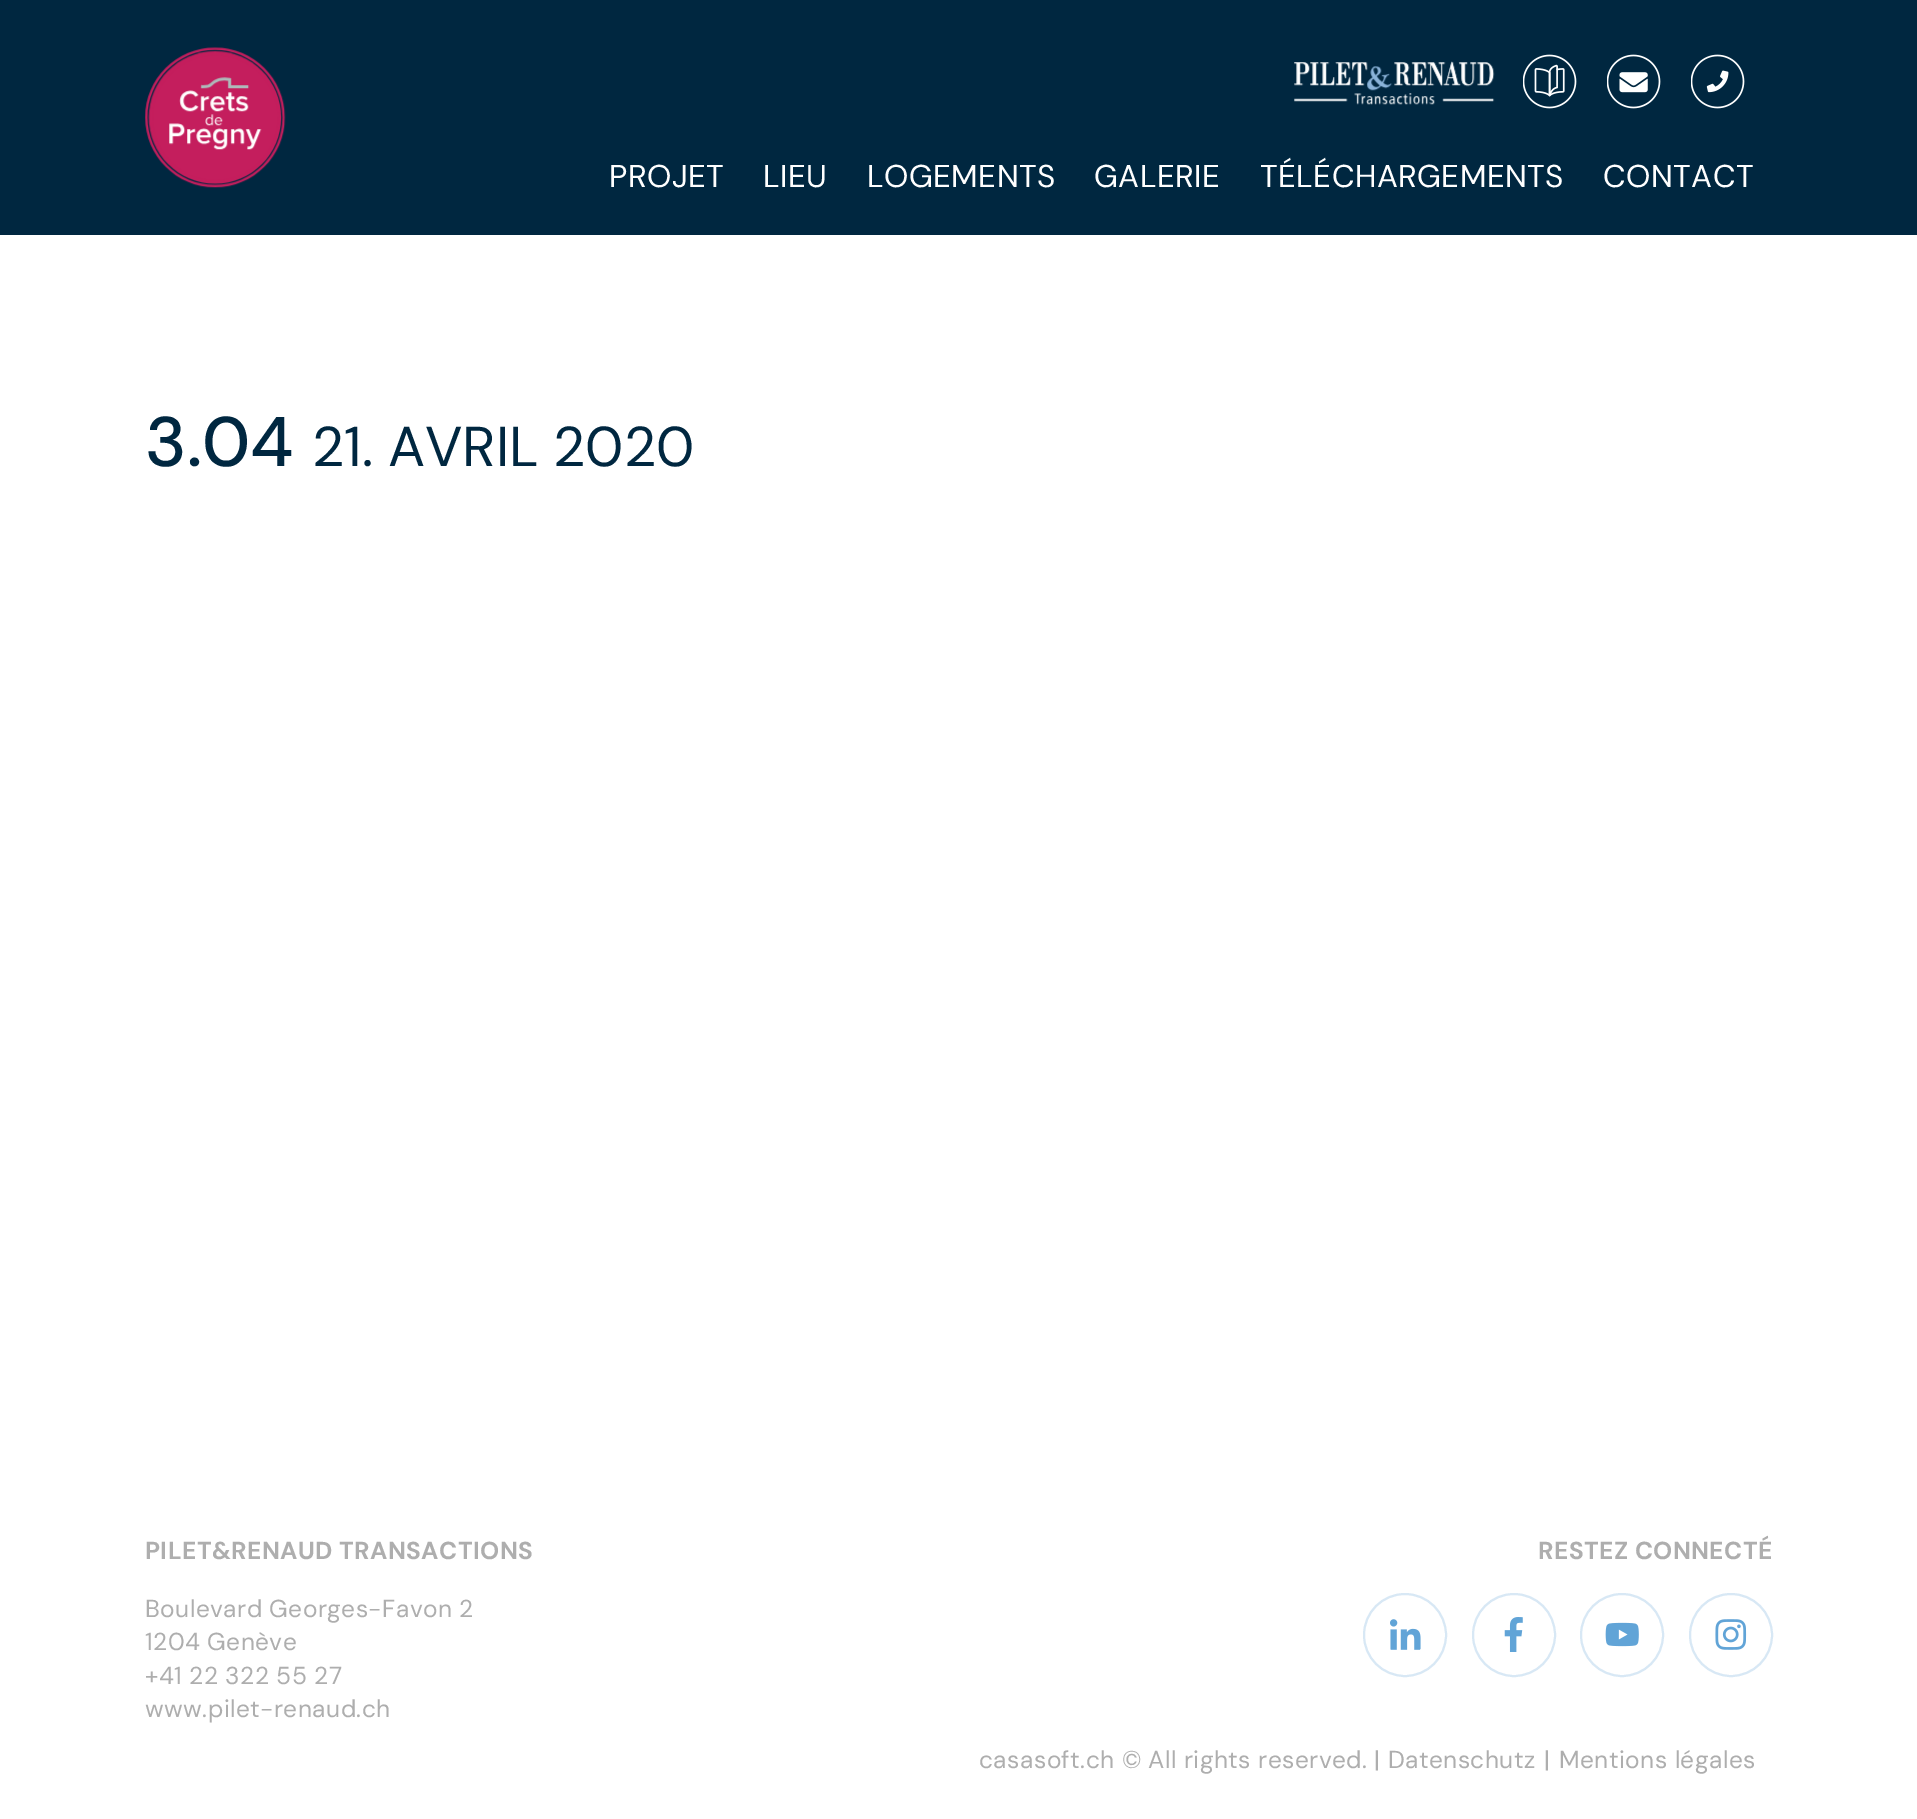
%!PS-Adobe-3.0
%%BoundingBox: 0 0 1917 1819
%%LanguageLevel: 3
%%Pages: 1
%%EndComments
%%BeginProlog
/setink { dup -16 bitshift 255 div exch dup -8 bitshift 255 and 255 div exch 255 and 255 div setrgbcolor } def
/usefont { [ exch dup neg 0 0 3 -1 roll 0 0 ] selectfont } def
/disc { newpath 0 360 arc closepath } def
/drawimage { 5 dict begin { /h /w /y /x /name } { exch def } forall
  gsave x y translate w h scale
  w h 8 [w 0 0 h 0 0] name (r) file false 3 colorimage grestore end } def
%%EndProlog
%%BeginSetup
<< /PageSize [1917 1819] >> setpagedevice
%%EndSetup
%%Page: 1 1
0 1819 translate 1 -1 scale
4 setmiterlimit
16#FFFFFF setink
0 0 1917 1819 rectfill
16#002740 setink
0 0 1917 235 rectfill
(img1.raw) 145 47 141 141 drawimage
(img2.raw) 1294 61 201 44 drawimage
(img3.raw) 1523 54 54 55 drawimage
(img4.raw) 1607 54 54 55 drawimage
(img5.raw) 1691 54 54 55 drawimage
/DMSans-Regular 31.5 usefont
16#FFFFFF setink
609 187 moveto 0.45 0 (PROJET) ashow
763 187 moveto 0.45 0 (LIEU) ashow
867 187 moveto 0.45 0 (LOGEMENTS) ashow
1094 187 moveto 0.45 0 (GALERIE) ashow
1260 187 moveto 0.45 0 (TÉLÉCHARGEMENTS) ashow
1603 187 moveto 0.45 0 (CONTACT) ashow
/DMSans-Medium 70 usefont
16#002740 setink
145 466 moveto (3.04) show
/DMSans-Regular 56 usefont
312 466 moveto (21. AVRIL 2020) show
/DMSans-Bold 24.5 usefont
16#AEAEAE setink
145 1559 moveto 0.45 0 (PILET&RENAUD TRANSACTIONS) ashow
/DMSans-Regular 24.5 usefont
145 1617 moveto 0.45 0 (Boulevard Georges-Favon 2) ashow
145 1650 moveto 0.45 0 (1204 Genève) ashow
145 1684 moveto 0.45 0 (+41 22 322 55 27) ashow
145 1717 moveto 0.45 0 (www.pilet-renaud.ch) ashow
/DMSans-Bold 24.5 usefont
1538 1559 moveto 0.45 0 (RESTEZ CONNECTÉ) ashow
16#D8E8F5 setink
2 setlinewidth
1405 1635 41 disc stroke
(img6.raw) 1390 1619 31 31 drawimage
(img7.raw) 1390 1649 31 1 drawimage
1514 1635 41 disc stroke
(img8.raw) 1504 1617 19 35 drawimage
1622 1635 41 disc stroke
(img9.raw) 1605 1622 34 25 drawimage
1731 1635 41 disc stroke
(img10.raw) 1715 1619 32 31 drawimage
/DMSans-Regular 24.5 usefont
16#AEAEAE setink
979 1768 moveto 0.45 0 (casasoft.ch © All rights reserved. | Datenschutz) ashow
1544 1768 moveto 0.45 0 (|) ashow
1559 1768 moveto 0.45 0 (Mentions légales) ashow
showpage
%%EOF
